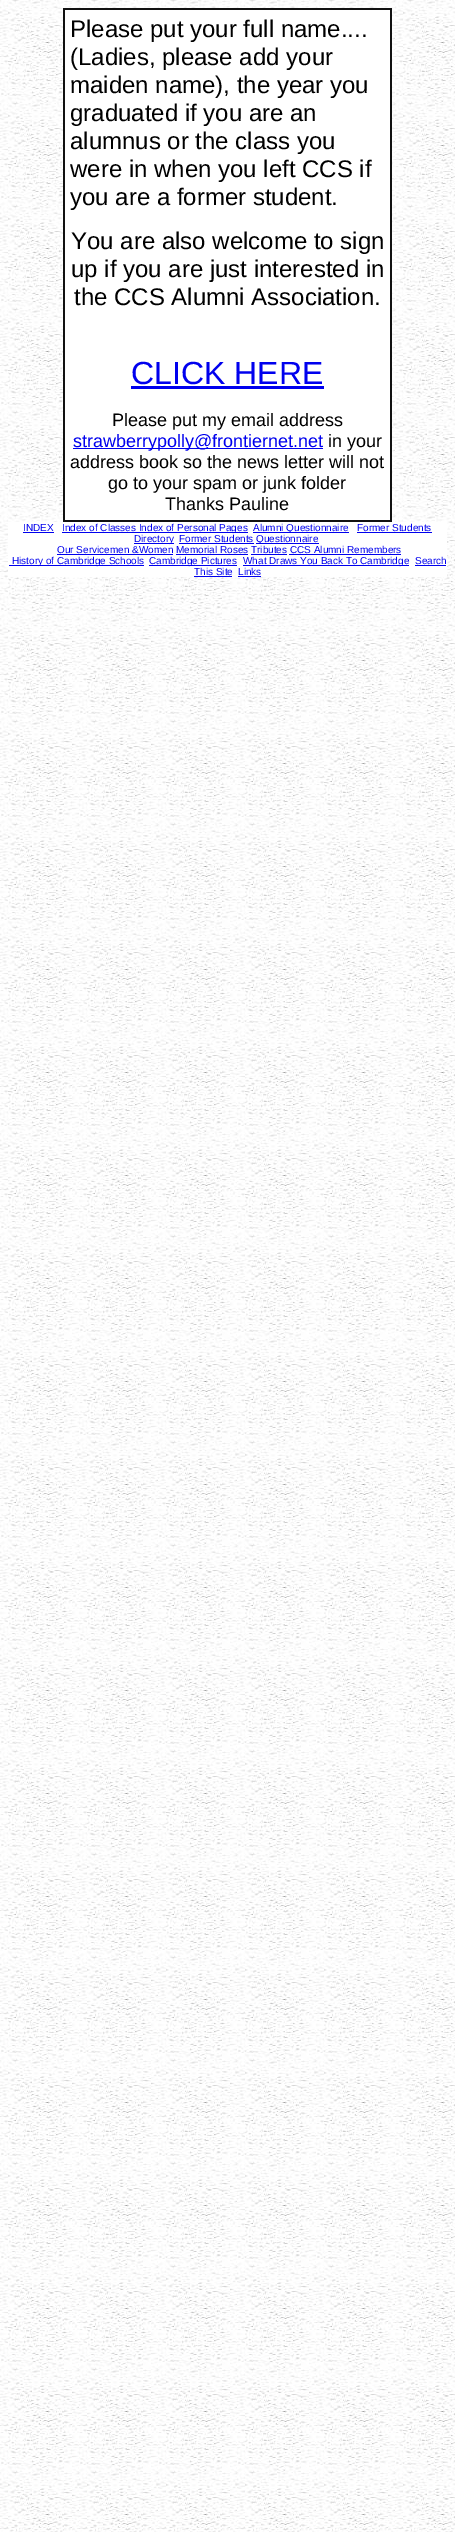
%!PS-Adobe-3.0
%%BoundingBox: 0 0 455 2532
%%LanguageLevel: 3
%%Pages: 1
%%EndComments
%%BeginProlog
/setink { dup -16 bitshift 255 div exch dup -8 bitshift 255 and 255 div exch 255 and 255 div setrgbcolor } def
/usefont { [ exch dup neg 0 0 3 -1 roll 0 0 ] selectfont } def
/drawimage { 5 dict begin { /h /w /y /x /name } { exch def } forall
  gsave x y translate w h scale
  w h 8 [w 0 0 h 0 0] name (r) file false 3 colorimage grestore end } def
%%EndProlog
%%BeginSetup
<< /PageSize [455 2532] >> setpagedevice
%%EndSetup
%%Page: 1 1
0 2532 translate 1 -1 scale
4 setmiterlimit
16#FFFFFF setink
0 0 455 2532 rectfill
(img1.raw) 0 0 455 2532 drawimage
[
    [65 10 325 510 16#FFFFFF]
    [63 8 329 2 16#111111]
    [390 8 2 514 16#111111]
    [63 520 329 2 16#111111]
    [63 8 2 514 16#111111]
] { aload pop setink rectfill } forall
/LiberationSans-Regular 24 usefont
16#000000 setink
[
    [(Please put your full name....) 70 37]
    [(\(Ladies, please add your) 70 65]
    [(maiden name\), the year you) 70 93]
    [(graduated if you are an) 70 121]
    [(alumnus or the class you) 70 149]
    [(were in when you left CCS if) 70 177]
    [(you are a former student.) 70 205]
    [(You are also welcome to sign) 71 249]
    [(up if you are just interested in) 71 277]
    [(the CCS Alumni Association.) 74 305]
] { aload pop moveto show } forall
/LiberationSans-Regular 32 usefont
16#0000EE setink
131 384 moveto (CLICK HERE) show
131 386 193 3 rectfill
/LiberationSans-Regular 18 usefont
16#000000 setink
112 426 moveto (Please put my email address) show
16#0000EE setink
73 448 250 1 rectfill
73 447 moveto (strawberrypolly@frontiernet.net) show
16#000000 setink
[
    [(in your) 328 447]
    [(address book so the news letter will not) 70 468]
    [(go to your spam or junk folder) 108 489]
    [(Thanks Pauline) 165 510]
] { aload pop moveto show } forall
16#FFFFFF setink
8 522 439 55 rectfill
/LiberationSans-Regular 10 usefont
16#0000EE setink
23 531 moveto (INDEX) show
23 532 31 1 rectfill
62 532 186 1 rectfill
62 531 moveto (Index of Classes Index of Personal Pages) show
253 532 96 1 rectfill
253 531 moveto (Alumni Questionnaire) show
357 531 moveto (Former Students) show
357 532 75 1 rectfill
134 543 40 1 rectfill
134 542 moveto (Directory) show
179 542 moveto (Former Students) show
179 543 75 1 rectfill
256 543 63 1 rectfill
256 542 moveto (Questionnaire) show
57 553 moveto (Our Servicemen &Women Memorial Roses Tributes CCS Alumni Remembers) show
[
    [57 554 116 1 16#0000EE]
    [176 554 72 1 16#0000EE]
    [251 554 36 1 16#0000EE]
    [289 554 112 1 16#0000EE]
    [9 565 135 1 16#0000EE]
] { aload pop setink rectfill } forall
12 564 moveto (History of Cambridge Schools) show
149 565 88 1 rectfill
149 564 moveto (Cambridge Pictures) show
243 565 166 1 rectfill
243 564 moveto (What Draws You Back To Cambridge) show
415 564 moveto (Search) show
415 565 31 1 rectfill
194 575 moveto (This Site) show
194 576 38 1 rectfill
238 575 moveto (Links) show
238 576 23 1 rectfill
showpage
%%EOF
